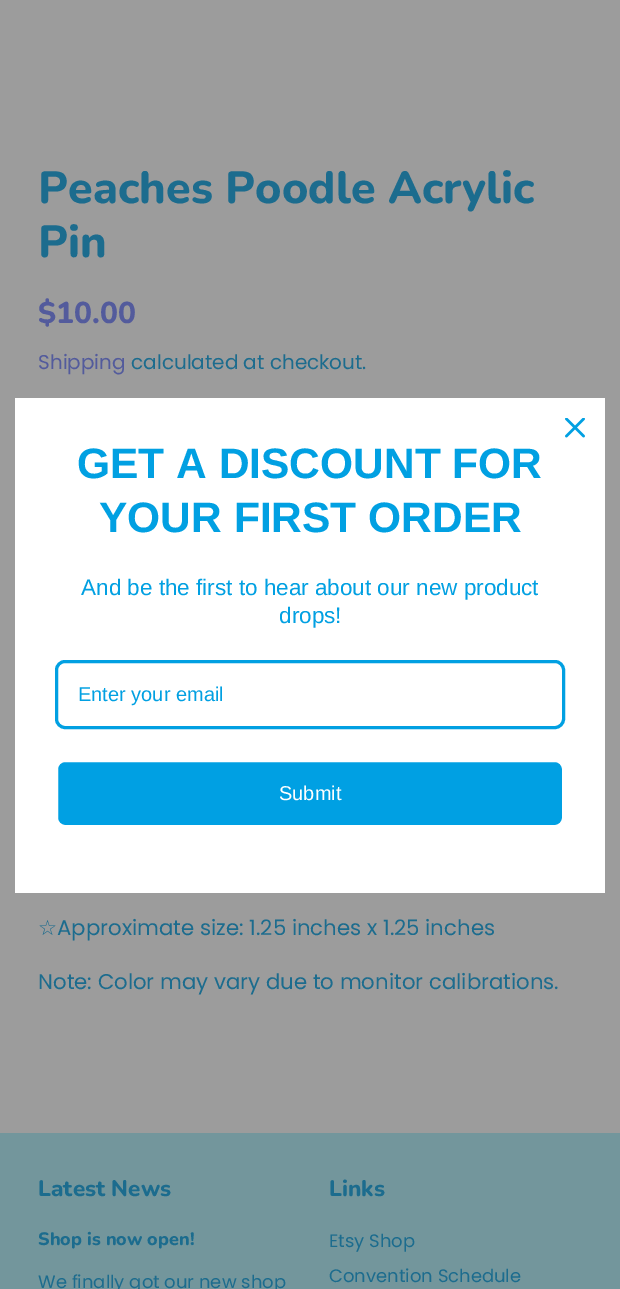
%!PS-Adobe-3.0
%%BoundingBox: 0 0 620 1289
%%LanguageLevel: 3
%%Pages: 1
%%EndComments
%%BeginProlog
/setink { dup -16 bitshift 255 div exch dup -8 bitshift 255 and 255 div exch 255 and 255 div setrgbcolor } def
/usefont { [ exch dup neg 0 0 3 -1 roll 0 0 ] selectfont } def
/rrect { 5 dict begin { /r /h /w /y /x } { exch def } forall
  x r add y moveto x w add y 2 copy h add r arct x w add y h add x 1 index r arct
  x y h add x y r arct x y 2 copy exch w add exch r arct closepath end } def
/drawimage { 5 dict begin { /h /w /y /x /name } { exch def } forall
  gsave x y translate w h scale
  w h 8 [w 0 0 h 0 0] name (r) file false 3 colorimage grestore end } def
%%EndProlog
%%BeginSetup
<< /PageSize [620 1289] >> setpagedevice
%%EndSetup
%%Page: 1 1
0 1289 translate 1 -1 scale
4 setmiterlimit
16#9C9C9C setink
0 0 620 1289 rectfill
/Nunito-ExtraBold 45 usefont
16#1C6C8E setink
38 203 moveto (Peaches Poodle Acrylic) show
38 257 moveto (Pin) show
/Nunito-ExtraBold 30 usefont
16#535B9C setink
38 323 moveto ($10.00) show
/Poppins-Regular 20 usefont
38 369 moveto (Shipping) show
16#1C6C8E setink
131 369 moveto (calculated at checkout.) show
/DejaVuSans-Regular 21.25 usefont
38 935 moveto (☆) show
/Poppins-Regular 21.25 usefont
57 935 moveto (Approximate size: 1.25 inches x 1.25 inches) show
38 989 moveto (Note: Color may vary due to monitor calibrations.) show
16#FFFFFF setink
15 398 590 495 rectfill
(img1.raw) 565 418 20 20 drawimage
/LiberationSans-Bold 42.5 usefont
16#01A0E2 setink
77 478 moveto (GET A DISCOUNT FOR) show
99 532 moveto (YOUR FIRST ORDER) show
/LiberationSans-Regular 22.5 usefont
81 595 moveto (And be the first to hear about our new product) show
279 623 moveto (drops!) show
3 setlinewidth
56.5 661.5 507 66 8.5 rrect stroke
/LiberationSans-Regular 20 usefont
78 701 moveto (Enter your email) show
16#00A0E3 setink
56.5 760.5 507 66 8.5 rrect gsave fill grestore
16#FFFFFF setink
stroke
279 800 moveto (Submit) show
16#73969C setink
0 1133 620 156 rectfill
/Nunito-ExtraBold 22.5 usefont
16#1C6C8E setink
38 1196 moveto (Latest News) show
/Nunito-ExtraBold 18 usefont
38 1245 moveto (Shop is now open!) show
/Poppins-Regular 18 usefont
38 1288 moveto (We finally got our new shop) show
/Nunito-ExtraBold 22.5 usefont
329 1196 moveto (Links) show
/Poppins-Regular 18 usefont
329 1247 moveto (Etsy Shop) show
329 1282 moveto (Convention Schedule) show
showpage
%%EOF
